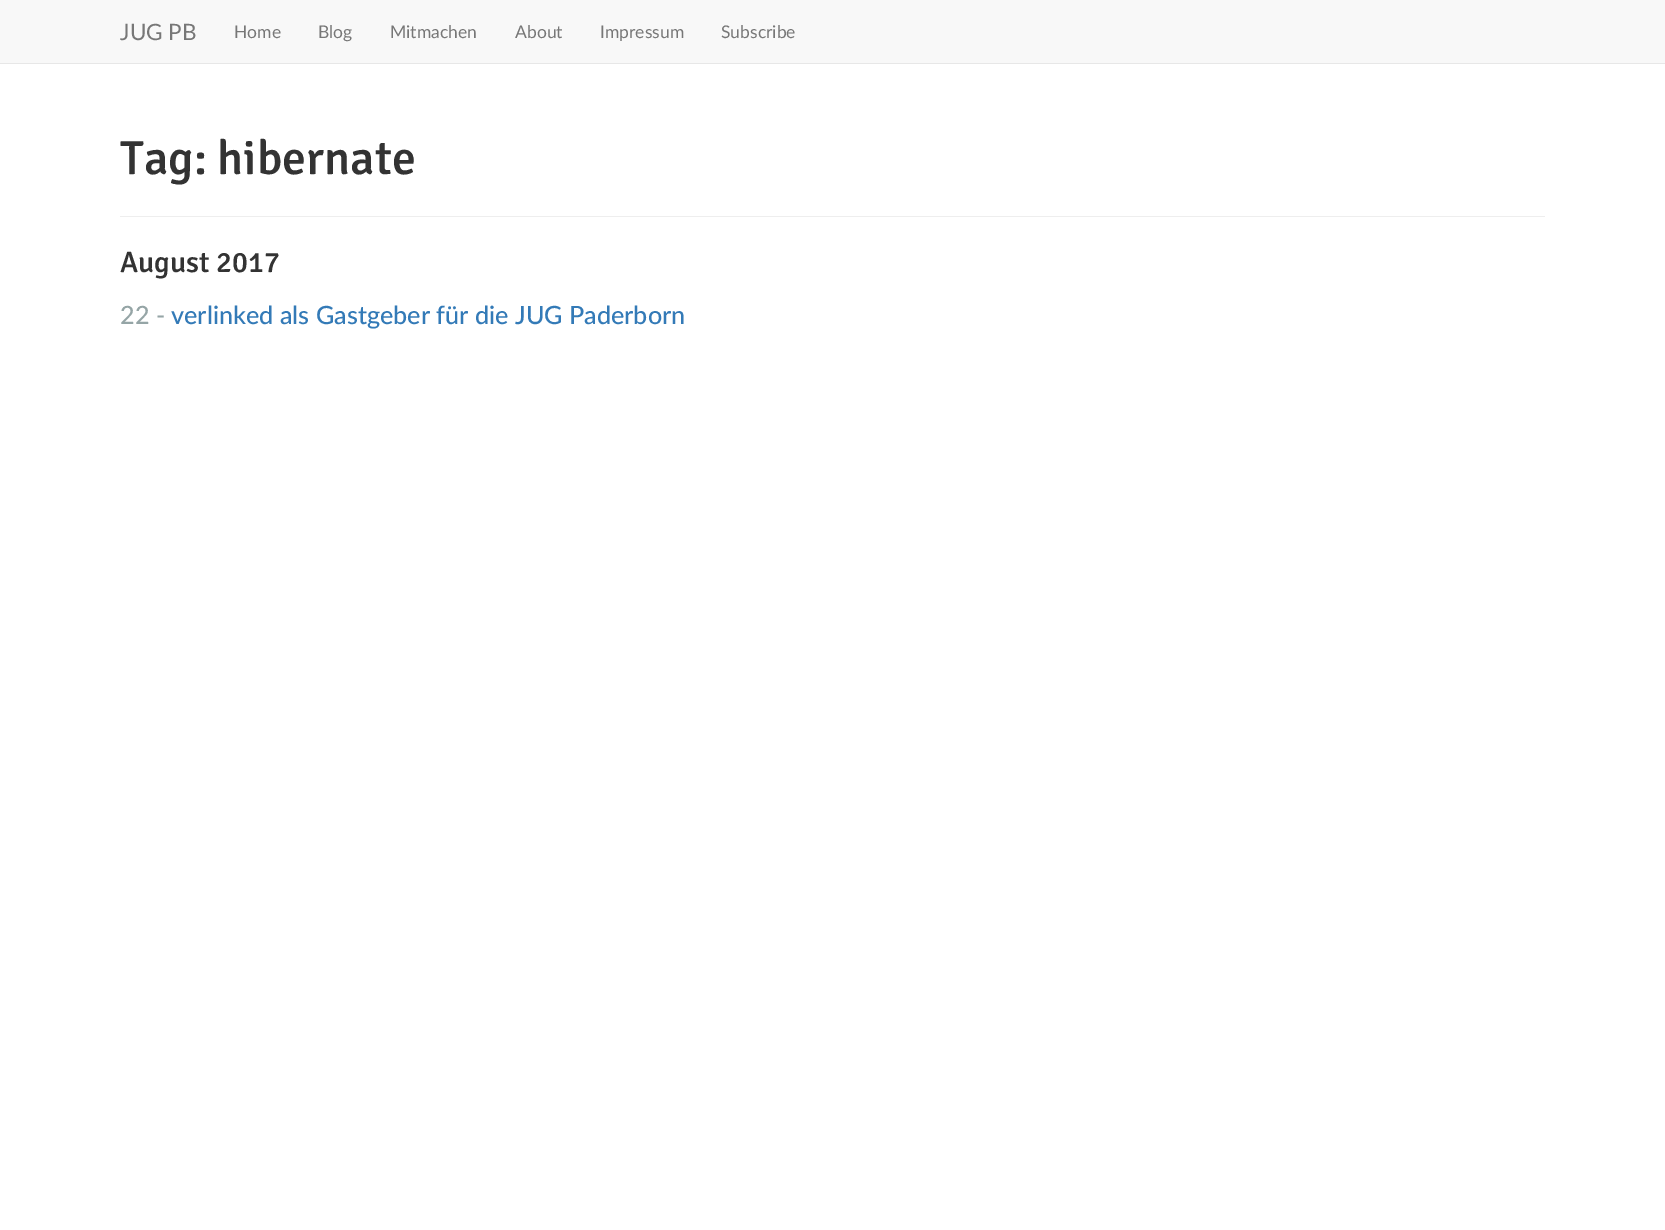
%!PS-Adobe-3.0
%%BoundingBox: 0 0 1665 1230
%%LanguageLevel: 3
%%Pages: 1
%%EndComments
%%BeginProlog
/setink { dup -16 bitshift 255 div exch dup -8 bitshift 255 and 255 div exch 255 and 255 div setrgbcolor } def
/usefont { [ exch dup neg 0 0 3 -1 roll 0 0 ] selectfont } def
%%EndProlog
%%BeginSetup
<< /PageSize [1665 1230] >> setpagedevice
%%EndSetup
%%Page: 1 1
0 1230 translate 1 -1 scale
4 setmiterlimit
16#FFFFFF setink
0 0 1665 1230 rectfill
16#F8F8F8 setink
0 0 1665 63 rectfill
16#E7E7E7 setink
0 63 1665 1 rectfill
/Lato-Regular 22.5 usefont
16#777777 setink
120 40 moveto (JUG PB) show
/Lato-Regular 17.5 usefont
[
    [(Home) 234 38]
    [(Blog) 318 38]
    [(Mitmachen) 390 38]
    [(About) 515 38]
    [(Impressum) 600 38]
    [(Subscribe) 721 38]
] { aload pop moveto show } forall
16#EEEEEE setink
120 216 1425 1 rectfill
/Signika-Medium 48 usefont
16#333333 setink
120 174 moveto (Tag: hibernate) show
/Signika-Medium 29.5 usefont
120 272 moveto (August 2017) show
/Lato-Medium 25.2 usefont
16#95A5A6 setink
120 324 moveto (22 -) show
16#337AB7 setink
171 324 moveto (verlinked als Gastgeber für die JUG Paderborn) show
showpage
%%EOF
